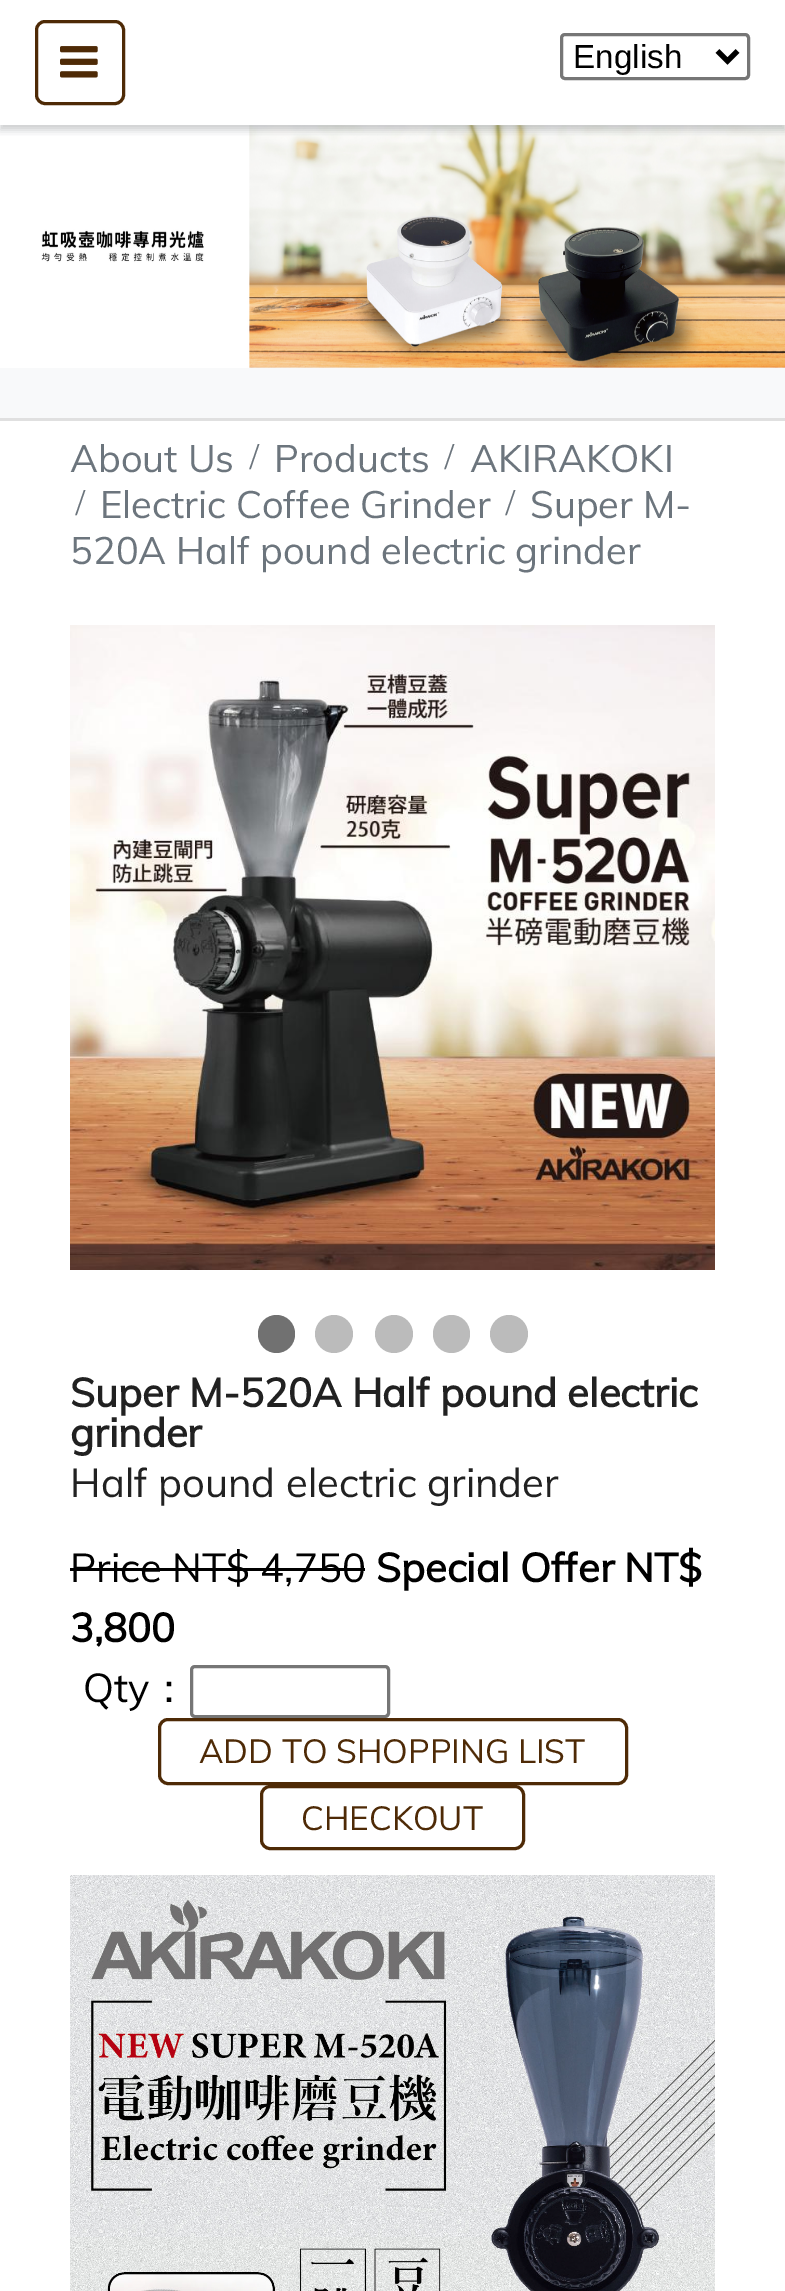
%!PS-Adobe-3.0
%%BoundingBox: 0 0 785 2291
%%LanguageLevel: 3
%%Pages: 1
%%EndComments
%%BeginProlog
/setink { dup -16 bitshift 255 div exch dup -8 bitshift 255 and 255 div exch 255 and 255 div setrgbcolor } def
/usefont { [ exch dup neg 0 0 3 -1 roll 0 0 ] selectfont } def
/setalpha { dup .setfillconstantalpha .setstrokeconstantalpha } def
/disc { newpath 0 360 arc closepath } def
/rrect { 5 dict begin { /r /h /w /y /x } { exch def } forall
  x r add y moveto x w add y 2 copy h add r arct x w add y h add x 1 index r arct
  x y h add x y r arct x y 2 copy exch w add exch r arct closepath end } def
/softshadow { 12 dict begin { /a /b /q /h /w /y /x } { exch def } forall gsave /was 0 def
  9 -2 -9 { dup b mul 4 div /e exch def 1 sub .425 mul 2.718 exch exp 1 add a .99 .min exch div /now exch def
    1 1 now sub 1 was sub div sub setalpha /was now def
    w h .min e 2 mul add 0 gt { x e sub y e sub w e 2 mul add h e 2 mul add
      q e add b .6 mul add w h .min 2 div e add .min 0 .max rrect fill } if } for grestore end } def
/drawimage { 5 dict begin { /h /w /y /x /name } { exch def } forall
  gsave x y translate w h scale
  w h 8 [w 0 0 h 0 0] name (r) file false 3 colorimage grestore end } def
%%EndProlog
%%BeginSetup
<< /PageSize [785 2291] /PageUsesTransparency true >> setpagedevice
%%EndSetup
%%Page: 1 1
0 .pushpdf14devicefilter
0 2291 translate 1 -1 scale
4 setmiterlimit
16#FFFFFF setink
0 0 785 2291 rectfill
(img2.raw) 41 125 744 243 drawimage
gsave
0 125 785 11 rectclip
16#343A40 setink
0 5 785 125 0 4 0.25 softshadow
grestore
16#4E2A06 setink
3 setlinewidth
36.5 21.5 87 82 8.5 rrect stroke
(img1.raw) 60 46 38 32 drawimage
16#767676 setink
561.5 34.5 187 44 3.5 rrect stroke
16#000000 setink
5 setlinewidth
717.5 51 moveto 727.5 61 lineto 737.5 51 lineto stroke
/LiberationSans-Regular 33.25 usefont
573 68 moveto (English) show
16#F8F9FA setink
0 368 785 50 rectfill
16#E0E0E0 setink
0 418 785 3 rectfill
/Muli-Regular 38 usefont
16#6C757D setink
70 472 moveto (About Us) show
/LiberationSerif-Regular 38 usefont
249 469 moveto (/) show
/Muli-Regular 38 usefont
274 472 moveto (Products) show
/LiberationSerif-Regular 38 usefont
444 469 moveto (/) show
/Muli-Regular 38 usefont
470 472 moveto (AKIRAKOKI) show
/LiberationSerif-Regular 38 usefont
505 515 moveto (/) show
/Muli-Regular 38 usefont
530 518 moveto (Super M-) show
70 564 moveto (520A Half pound electric grinder) show
/LiberationSerif-Regular 38 usefont
75 515 moveto (/) show
/Muli-Regular 38 usefont
100 518 moveto (Electric Coffee Grinder) show
(img3.raw) 70 625 645 645 drawimage
16#717171 setink
258 1315 37 38 18.5 rrect fill
16#BBBBBB setink
334 1334 19 disc fill
394 1334 19 disc fill
433 1315 37 38 18.5 rrect fill
509 1334 19 disc fill
/Muli-Bold 40 usefont
16#212121 setink
70 1407 moveto (Super M-520A Half pound electric) show
70 1447 moveto (grinder) show
/Muli-Regular 40 usefont
70 1497 moveto (Half pound electric grinder) show
16#000000 setink
70 1582 moveto (Price NT$ 4,750) show
70 1568 295 3 rectfill
/Muli-Bold 40 usefont
376 1582 moveto (Special Offer NT$) show
70 1642 moveto (3,800) show
/Muli-Regular 40 usefont
83 1702 moveto (Qty) show
/WenQuanYiZenHei-Medium 40 usefont
149 1702 moveto (：) show
16#767676 setink
3 setlinewidth
191.5 1666.5 197 50 3.5 rrect stroke
16#4E2A06 setink
159.5 1719.5 467 64 8.5 rrect stroke
/Muli-Regular 33.25 usefont
199 1763 moveto (ADD TO SHOPPING LIST) show
261.5 1786.5 262 62 8.5 rrect stroke
301 1830 moveto (CHECKOUT) show
(img4.raw) 70 1875 645 416 drawimage
.poppdf14devicefilter showpage
%%EOF
